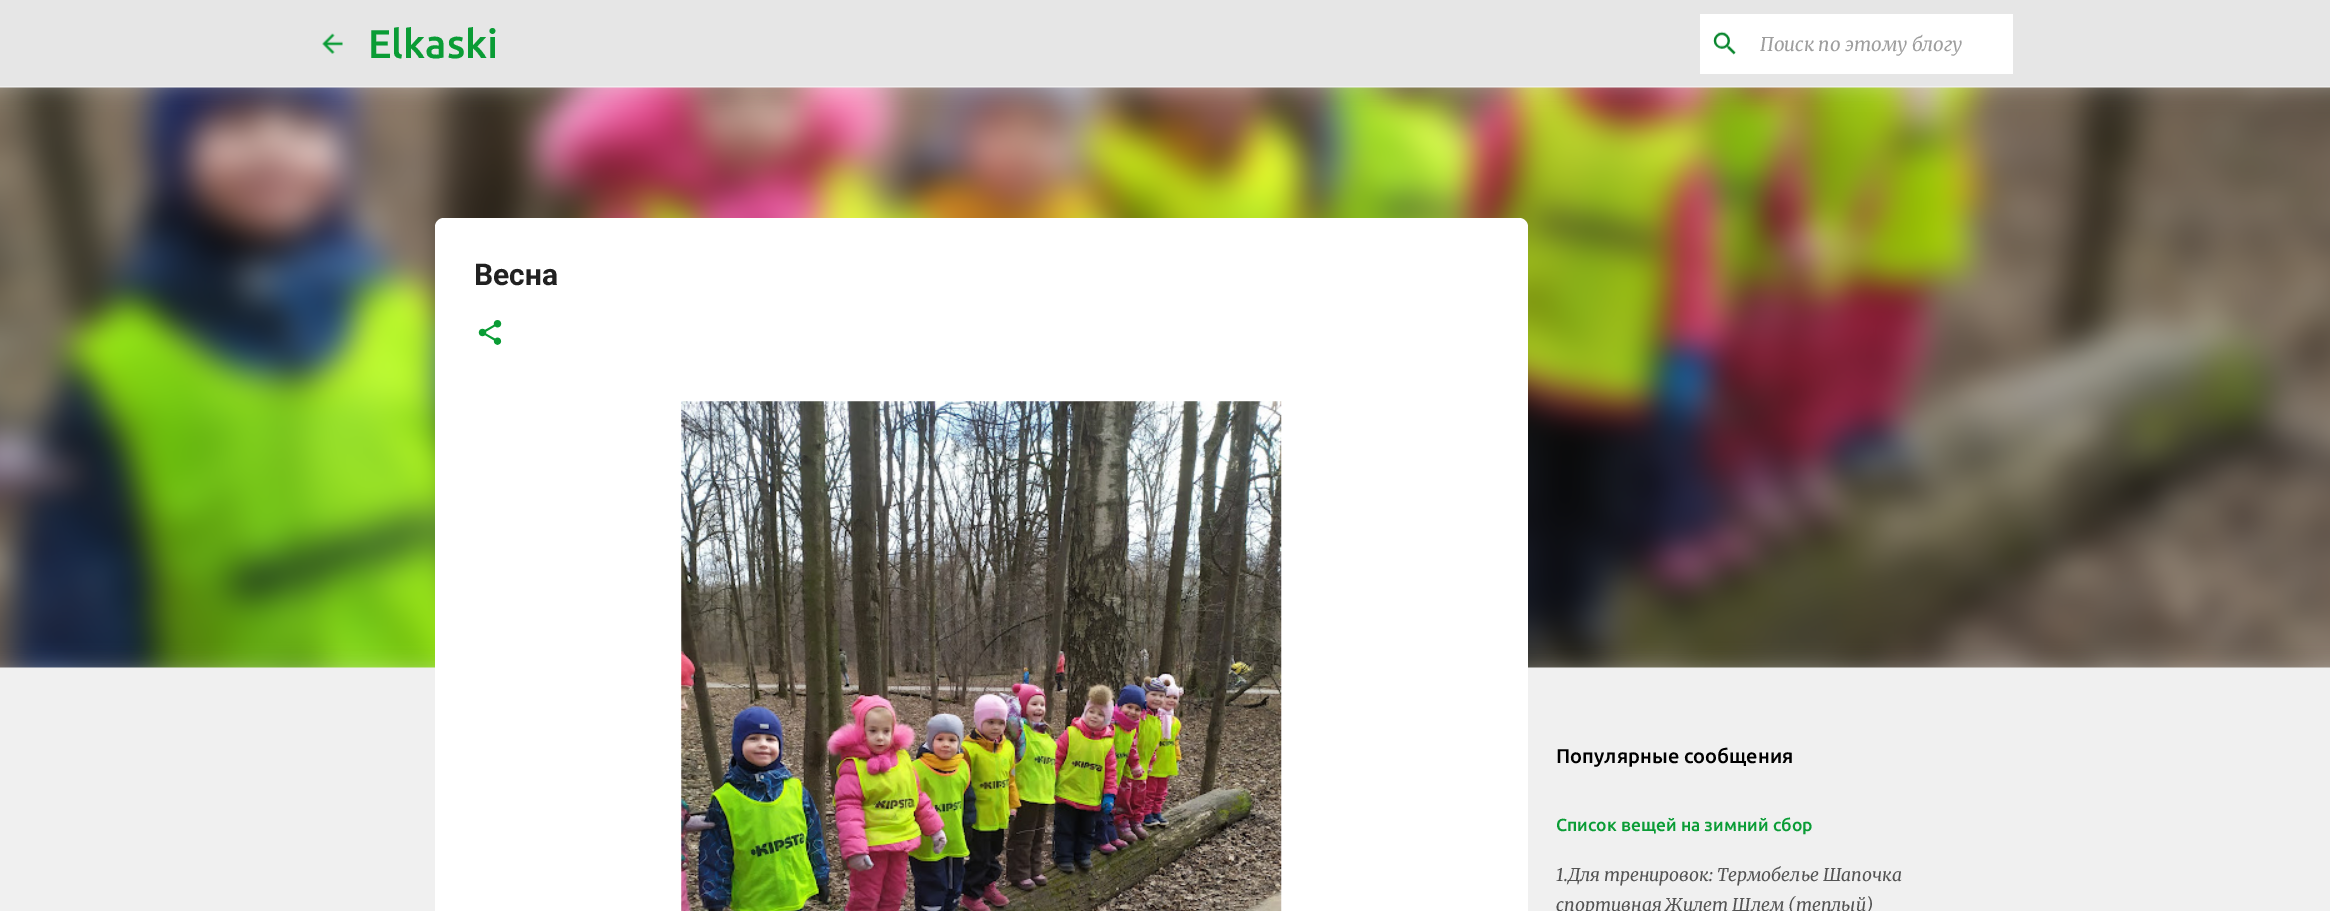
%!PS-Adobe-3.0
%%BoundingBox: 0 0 2330 911
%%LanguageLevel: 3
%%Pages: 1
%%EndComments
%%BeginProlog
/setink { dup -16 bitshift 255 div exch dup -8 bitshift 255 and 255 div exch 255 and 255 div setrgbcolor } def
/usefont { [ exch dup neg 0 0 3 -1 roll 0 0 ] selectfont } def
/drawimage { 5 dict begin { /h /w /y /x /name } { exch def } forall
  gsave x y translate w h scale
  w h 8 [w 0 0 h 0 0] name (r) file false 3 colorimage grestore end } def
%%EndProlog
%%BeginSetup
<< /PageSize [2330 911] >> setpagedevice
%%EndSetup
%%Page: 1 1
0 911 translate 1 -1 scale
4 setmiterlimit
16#F0F0F0 setink
0 0 2330 911 rectfill
16#E6E6E6 setink
0 0 2330 86 rectfill
(img1.raw) 322 33 21 21 drawimage
/Ubuntu-Medium 40 usefont
16#0A9C35 setink
368 58 moveto (Elkaski) show
16#FFFFFF setink
1700 14 313 60 rectfill
(img2.raw) 1713 31 23 24 drawimage
/Merriweather-Italic 18.75 usefont
16#9E9E9E setink
1760 51 moveto (Поиск по этому блогу) show
(img5.raw) 0 87 2330 581 drawimage
16#FFFFFF setink
444 218 moveto 1519 218 lineto 1524 218 1528 222 1528 227 curveto 1528 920 lineto 435 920 lineto 435 227 lineto 435 222 439 218 444 218 curveto closepath fill
/Roboto-Bold 30 usefont
16#212121 setink
474 285 moveto (Весна) show
(img3.raw) 478 320 24 25 drawimage
(img4.raw) 681 401 601 510 drawimage
/Ubuntu-Medium 20 usefont
16#000000 setink
1556 763 moveto (Популярные сообщения) show
/Ubuntu-Medium 17.5 usefont
16#0A9C35 setink
1556 831 moveto (Список вещей на зимний сбор) show
/Merriweather-Italic 17.5 usefont
16#535353 setink
1556 881 moveto (1.Для тренировок: Термобелье Шапочка) show
1556 911 moveto (спортивная Жилет Шлем \(теплый\)) show
showpage
%%EOF
